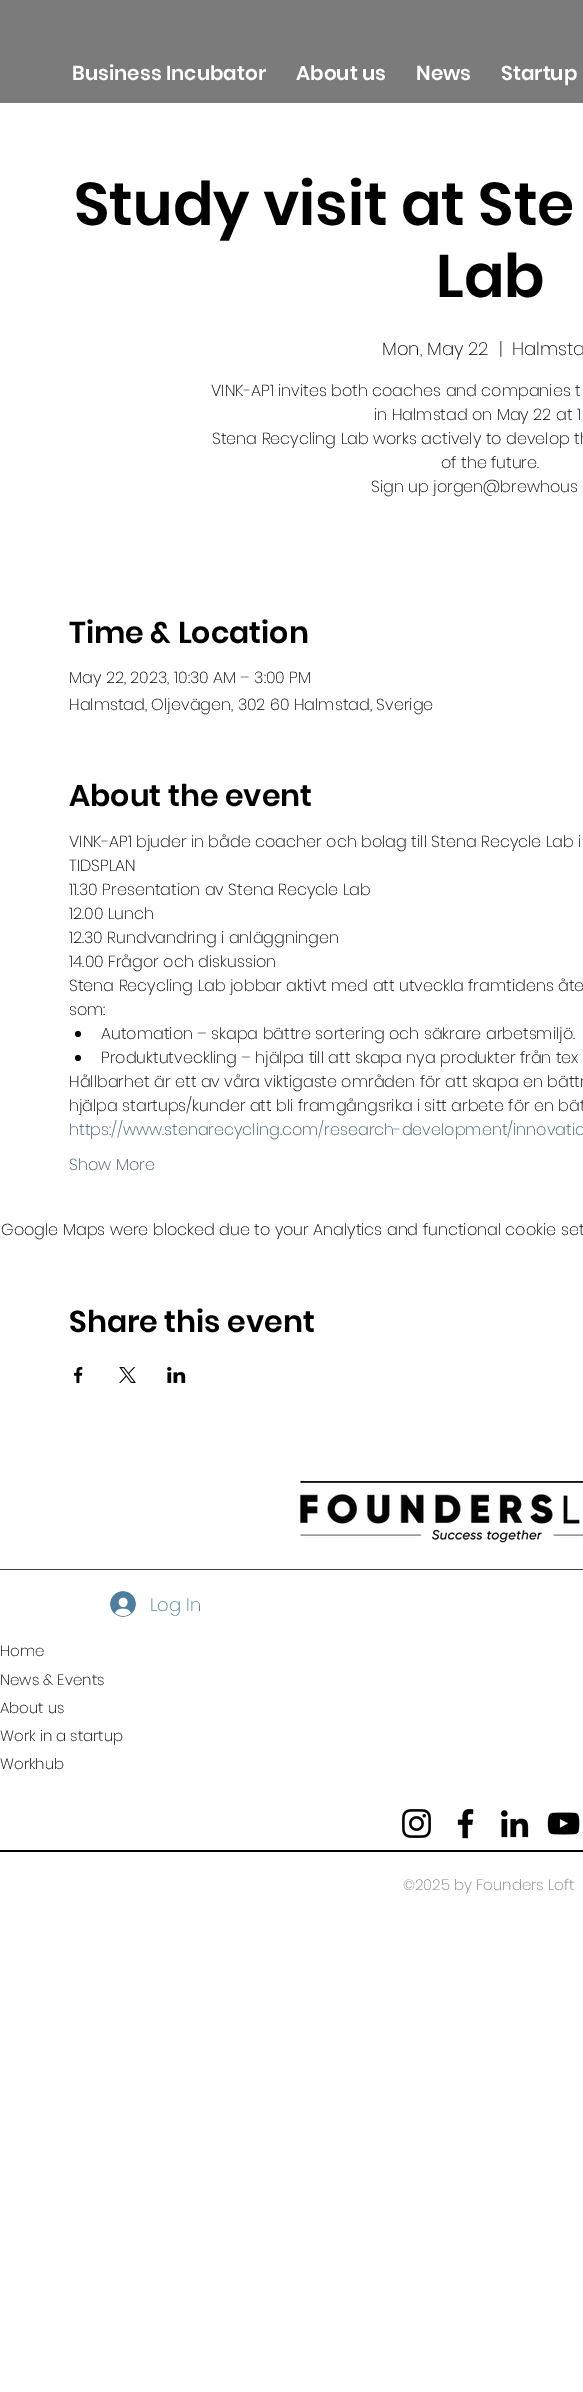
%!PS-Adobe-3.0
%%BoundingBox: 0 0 583 2392
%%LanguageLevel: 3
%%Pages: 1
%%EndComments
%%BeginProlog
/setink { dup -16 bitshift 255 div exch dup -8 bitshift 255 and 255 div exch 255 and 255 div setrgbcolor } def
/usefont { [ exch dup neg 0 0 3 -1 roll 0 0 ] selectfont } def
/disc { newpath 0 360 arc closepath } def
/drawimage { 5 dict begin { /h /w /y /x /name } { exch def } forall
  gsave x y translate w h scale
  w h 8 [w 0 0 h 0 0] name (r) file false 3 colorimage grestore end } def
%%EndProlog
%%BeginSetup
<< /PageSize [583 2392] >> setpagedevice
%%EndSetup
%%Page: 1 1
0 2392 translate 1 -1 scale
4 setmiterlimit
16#FFFFFF setink
0 0 583 2392 rectfill
16#7B7B7B setink
0 0 583 103 rectfill
/Poppins-SemiBold 20 usefont
16#FFFFFF setink
[
    [(Business Incubator) 72 80]
    [(About us) 296 80]
    [(News) 416 80]
    [(Startup) 501 80]
] { aload pop moveto show } forall
/Poppins-SemiBold 60 usefont
16#000000 setink
74 225 moveto (Study visit at Ste) show
436 297 moveto (Lab) show
/Poppins-ExtraLight 18 usefont
[
    [(Mon, May 22) 382 355]
    [(|) 499 355]
    [(Halmsta) 512 355]
] { aload pop moveto show } forall
/Poppins-ExtraLight 16 usefont
[
    [(VINK-AP1 invites both coaches and companies t) 211 396]
    [(in Halmstad on May 22 at 1) 374 420]
    [(Stena Recycling Lab works actively to develop th) 212 444]
    [(of the future.) 441 468]
    [(Sign up jorgen@brewhous) 371 492]
] { aload pop moveto show } forall
/Poppins-SemiBold 30 usefont
69 643 moveto (Time & Location) show
/Poppins-ExtraLight 16 usefont
69 683 moveto (May 22, 2023, 10:30 AM – 3:00 PM) show
69 710 moveto (Halmstad, Oljevägen, 302 60 Halmstad, Sverige) show
/Poppins-SemiBold 30 usefont
69 806 moveto (About the event) show
/Poppins-ExtraLight 16 usefont
[
    [(VINK-AP1 bjuder in både coacher och bolag till Stena Recycle Lab i) 69 847]
    [(TIDSPLAN) 69 871]
    [(11.30 Presentation av Stena Recycle Lab) 69 895]
    [(12.00 Lunch) 69 919]
    [(12.30 Rundvandring i anläggningen) 69 943]
    [(14.00 Frågor och diskussion) 69 967]
    [(Stena Recycling Lab jobbar aktivt med att utveckla framtidens åte) 69 991]
    [(som:) 69 1015]
] { aload pop moveto show } forall
78 1034 3 disc fill
101 1039 moveto (Automation – skapa bättre sortering och säkrare arbetsmiljö.) show
78 1058 3 disc fill
[
    [(Produktutveckling – hjälpa till att skapa nya produkter från tex) 101 1063]
    [(Hållbarhet är ett av våra viktigaste områden för att skapa en bättr) 69 1087]
    [(hjälpa startups/kunder att bli framgångsrika i sitt arbete för en bät) 69 1111]
] { aload pop moveto show } forall
16#33546B setink
69 1135 moveto (https://www.stenarecycling.com/research-development/innovatio) show
69 1170 moveto (Show More) show
16#000000 setink
1 1235 moveto (Google Maps were blocked due to your Analytics and functional cookie set) show
/Poppins-SemiBold 30 usefont
69 1332 moveto (Share this event) show
(img1.raw) 74 1367 9 16 drawimage
(img2.raw) 119 1367 17 16 drawimage
(img3.raw) 167 1367 19 16 drawimage
(img4.raw) 300 1481 283 62 drawimage
16#424242 setink
0 1569 583 1 rectfill
(img5.raw) 110 1591 26 26 drawimage
/Poppins-ExtraLight 18 usefont
16#4D7EA0 setink
150 1611 moveto (Log In) show
/Poppins-ExtraLight 15 usefont
16#000000 setink
[
    [(Home) 0 1656]
    [(News & Events) 0 1685]
    [(About us) 0 1713]
    [(Work in a startup) 0 1741]
    [(Workhub) 0 1769]
] { aload pop moveto show } forall
(img6.raw) 402 1809 29 29 drawimage
(img7.raw) 457 1809 17 30 drawimage
(img8.raw) 500 1810 29 28 drawimage
(img9.raw) 547 1812 33 23 drawimage
0 1850 583 2 rectfill
16#808080 setink
403 1890 moveto (©2025 by Founders Loft) show
showpage
%%EOF
